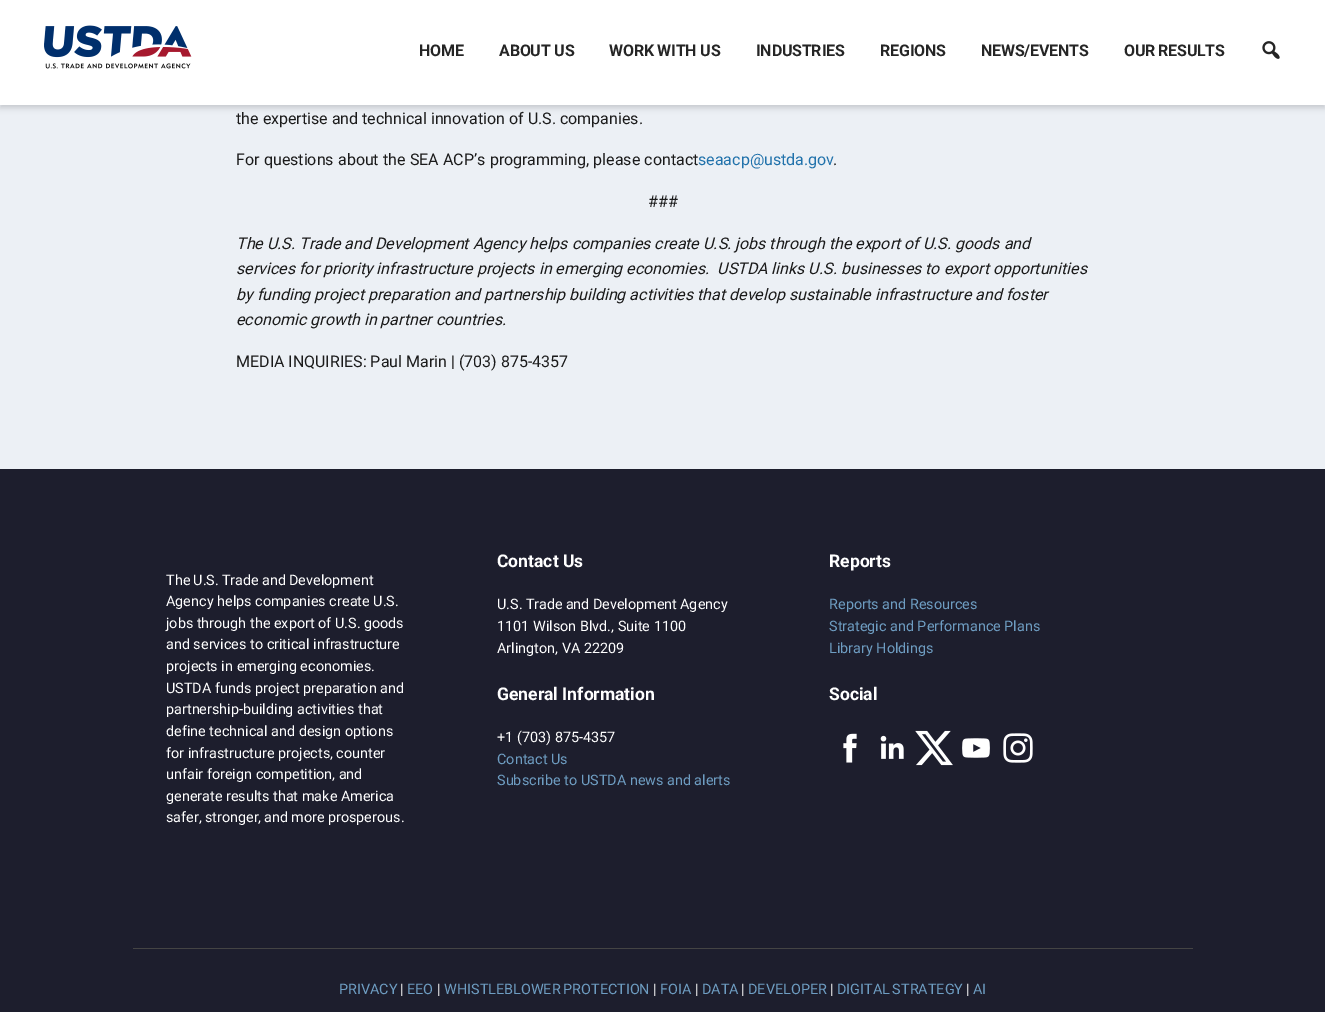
%!PS-Adobe-3.0
%%BoundingBox: 0 0 1325 1012
%%LanguageLevel: 3
%%Pages: 1
%%EndComments
%%BeginProlog
/setink { dup -16 bitshift 255 div exch dup -8 bitshift 255 and 255 div exch 255 and 255 div setrgbcolor } def
/usefont { [ exch dup neg 0 0 3 -1 roll 0 0 ] selectfont } def
/setalpha { dup .setfillconstantalpha .setstrokeconstantalpha } def
/rrect { 5 dict begin { /r /h /w /y /x } { exch def } forall
  x r add y moveto x w add y 2 copy h add r arct x w add y h add x 1 index r arct
  x y h add x y r arct x y 2 copy exch w add exch r arct closepath end } def
/softshadow { 12 dict begin { /a /b /q /h /w /y /x } { exch def } forall gsave /was 0 def
  9 -2 -9 { dup b mul 4 div /e exch def 1 sub .425 mul 2.718 exch exp 1 add a .99 .min exch div /now exch def
    1 1 now sub 1 was sub div sub setalpha /was now def
    w h .min e 2 mul add 0 gt { x e sub y e sub w e 2 mul add h e 2 mul add
      q e add b .6 mul add w h .min 2 div e add .min 0 .max rrect fill } if } for grestore end } def
/drawimage { 5 dict begin { /h /w /y /x /name } { exch def } forall
  gsave x y translate w h scale
  w h 8 [w 0 0 h 0 0] name (r) file false 3 colorimage grestore end } def
%%EndProlog
%%BeginSetup
<< /PageSize [1325 1012] /PageUsesTransparency true >> setpagedevice
%%EndSetup
%%Page: 1 1
0 .pushpdf14devicefilter
0 1012 translate 1 -1 scale
4 setmiterlimit
16#ECF0F5 setink
0 0 1325 1012 rectfill
16#000000 setink
0 3 1325 105 0 3 0.16 softshadow
16#FFFFFF setink
0 0 1325 105 rectfill
(img1.raw) 44 25 148 44 drawimage
/Roboto-Bold 16 usefont
16#252525 setink
419 56 moveto -0.2 0 (HOME) ashow
499 56 moveto -0.2 0 (ABOUT US) ashow
609 56 moveto -0.2 0 (WORK WITH US) ashow
756 56 moveto -0.2 0 (INDUSTRIES) ashow
880 56 moveto -0.2 0 (REGIONS) ashow
981 56 moveto -0.2 0 (NEWS/EVENTS) ashow
1124 56 moveto -1 0 32 -0.2 0 (OUR RESULTS) awidthshow
(img2.raw) 1262 41 18 18 drawimage
/Roboto-Regular 16 usefont
16#1B1B1B setink
236 124 moveto (the expertise and technical innovation of U.S. companies.) show
236 165 moveto 0.25 0 32 (For questions about the SEA ACP’s programming, please contact) widthshow
16#2172AB setink
698 165 moveto (seaacp@ustda.gov) show
16#1B1B1B setink
833 165 moveto (.) show
648 207 moveto (###) show
/Roboto-Italic 16 usefont
[
    [(The U.S. Trade and Development Agency helps companies create U.S. jobs through the export of U.S. goods and) 236 249]
    [(services for priority infrastructure projects in emerging economies.  USTDA links U.S. businesses to export opportunities) 236 274]
    [(by funding project preparation and partnership building activities that develop sustainable infrastructure and foster) 236 300]
    [(economic growth in partner countries.) 236 325]
] { aload pop moveto show } forall
/Roboto-Regular 16 usefont
236 367 moveto (MEDIA INQUIRIES: Paul Marin | \(703\) 875-4357) show
16#1D1E2D setink
0 469 1325 543 rectfill
/Roboto-Regular 14.4 usefont
16#FFFFFF setink
166 585 moveto -0.5 0 32 (The U.S. Trade and Development) widthshow
[
    [(Agency helps companies create U.S.) 166 606]
    [(jobs through the export of U.S. goods) 166 628]
    [(and services to critical infrastructure) 166 649]
    [(projects in emerging economies.) 166 671]
    [(USTDA funds project preparation and) 166 693]
    [(partnership-building activities that) 166 714]
    [(define technical and design options) 166 736]
    [(for infrastructure projects, counter) 166 758]
    [(unfair foreign competition, and) 166 779]
    [(generate results that make America) 166 801]
] { aload pop moveto show } forall
166 822 moveto -0.5 0 32 (safer, stronger, and more prosperous.) widthshow
/Roboto-Bold 17.5 usefont
497 567 moveto (Contact Us) show
/Roboto-Regular 14.4 usefont
497 609 moveto -0.5 0 32 (U.S. Trade and Development Agency) widthshow
497 631 moveto (1101 Wilson Blvd., Suite 1100) show
497 653 moveto (Arlington, VA 22209) show
/Roboto-Bold 17.5 usefont
497 700 moveto (General Information) show
/Roboto-Regular 14.4 usefont
497 742 moveto (+1 \(703\) 875-4357) show
16#6E9DC2 setink
497 764 moveto (Contact Us) show
497 785 moveto (Subscribe to USTDA news and alerts) show
/Roboto-Bold 17.5 usefont
16#FFFFFF setink
829 567 moveto (Reports) show
/Roboto-Regular 14.4 usefont
16#6E9DC2 setink
[
    [(Reports and Resources) 829 609]
    [(Strategic and Performance Plans) 829 631]
    [(Library Holdings) 829 653]
] { aload pop moveto show } forall
/Roboto-Bold 17.5 usefont
16#FFFFFF setink
829 700 moveto (Social) show
(img3.raw) 843 733 14 30 drawimage
(img4.raw) 880 735 24 24 drawimage
(img5.raw) 915 730 38 36 drawimage
(img6.raw) 962 738 28 20 drawimage
(img7.raw) 1003 733 30 30 drawimage
16#444444 setink
133 948 1060 1 rectfill
/Roboto-Regular 14.4 usefont
16#6E9DC2 setink
339 994 moveto (PRIVACY) show
16#FFFFFF setink
400 994 moveto (|) show
16#6E9DC2 setink
407 994 moveto (EEO) show
16#FFFFFF setink
437 994 moveto (|) show
16#6E9DC2 setink
444 994 moveto -1 0 32 (WHISTLEBLOWER PROTECTION) widthshow
16#FFFFFF setink
653 994 moveto (|) show
16#6E9DC2 setink
660 994 moveto (FOIA) show
16#FFFFFF setink
695 994 moveto (|) show
16#6E9DC2 setink
702 994 moveto (DATA) show
16#FFFFFF setink
741 994 moveto (|) show
16#6E9DC2 setink
748 994 moveto (DEVELOPER) show
16#FFFFFF setink
830 994 moveto (|) show
16#6E9DC2 setink
837 994 moveto -1 0 32 (DIGITAL STRATEGY) widthshow
16#FFFFFF setink
966 994 moveto (|) show
16#6E9DC2 setink
973 994 moveto (AI) show
.poppdf14devicefilter showpage
%%EOF
